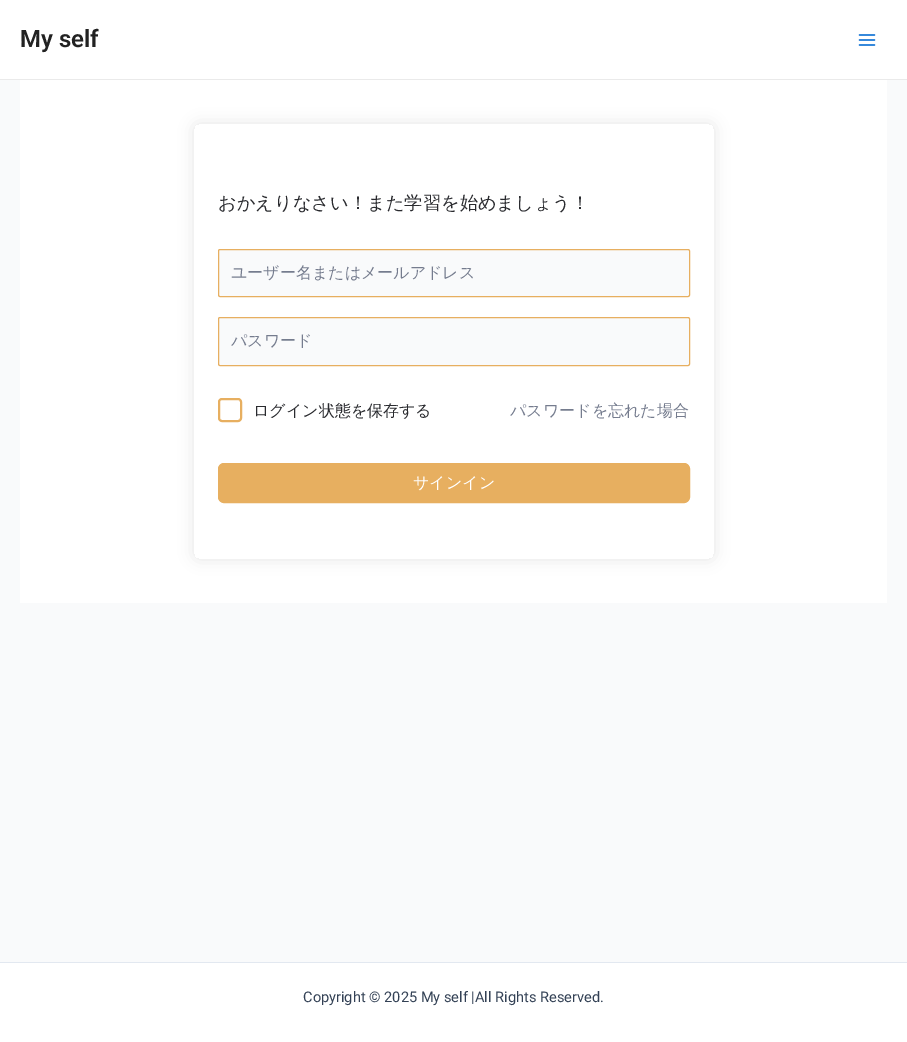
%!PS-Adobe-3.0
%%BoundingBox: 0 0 907 1042
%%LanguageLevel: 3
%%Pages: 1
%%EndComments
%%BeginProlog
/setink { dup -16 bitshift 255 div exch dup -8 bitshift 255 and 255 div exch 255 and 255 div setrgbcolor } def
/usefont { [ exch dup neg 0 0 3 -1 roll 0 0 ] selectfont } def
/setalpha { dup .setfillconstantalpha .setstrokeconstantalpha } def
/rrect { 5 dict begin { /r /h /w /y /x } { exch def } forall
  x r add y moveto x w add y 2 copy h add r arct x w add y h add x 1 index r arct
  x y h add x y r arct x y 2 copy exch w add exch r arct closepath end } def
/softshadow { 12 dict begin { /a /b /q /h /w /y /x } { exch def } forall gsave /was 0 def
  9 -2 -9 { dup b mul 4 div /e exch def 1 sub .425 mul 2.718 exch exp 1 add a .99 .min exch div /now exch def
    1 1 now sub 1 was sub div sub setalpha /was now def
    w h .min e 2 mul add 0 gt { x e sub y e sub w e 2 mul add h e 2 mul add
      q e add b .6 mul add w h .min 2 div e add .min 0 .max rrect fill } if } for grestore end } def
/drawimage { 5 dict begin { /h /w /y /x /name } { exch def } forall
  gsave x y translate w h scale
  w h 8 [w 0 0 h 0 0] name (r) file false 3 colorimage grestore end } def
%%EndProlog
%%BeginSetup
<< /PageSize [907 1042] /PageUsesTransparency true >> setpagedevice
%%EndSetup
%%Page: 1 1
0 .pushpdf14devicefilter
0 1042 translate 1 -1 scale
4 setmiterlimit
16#F9FAFB setink
0 0 907 1042 rectfill
16#FFFFFF setink
0 0 907 79 rectfill
16#EAEAEA setink
0 79 907 1 rectfill
/Roboto-SemiBold 24 usefont
16#222222 setink
20 47 moveto (My self) show
(img1.raw) 858 34 18 12 drawimage
16#FFFFFF setink
20 80 867 523 rectfill
gsave
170 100 moveto 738 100 lineto 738 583 lineto 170 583 lineto closepath 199 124 moveto 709 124 lineto 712 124 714 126 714 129 curveto 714 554 lineto 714 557 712 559 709 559 curveto 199 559 lineto 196 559 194 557 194 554 curveto 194 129 lineto 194 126 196 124 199 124 curveto closepath eoclip newpath
16#000000 setink
194 124 520 435 5 7.5 0.1 softshadow
grestore
/WenQuanYiZenHei-Medium 18.25 usefont
16#2A2B2F setink
218 209 moveto (おかえりなさい！また学習を始めましょう！) show
16#F9FAFB setink
218.5 249.5 471 47 1.5 rrect gsave fill grestore
16#E7AF60 setink
stroke
/WenQuanYiZenHei-Medium 16 usefont
16#757C8E setink
231 278 moveto (ユーザー名またはメールアドレス) show
16#F9FAFB setink
218.5 317.5 471 48 1.5 rrect gsave fill grestore
16#E7AF60 setink
stroke
16#757C8E setink
231 346 moveto (パスワード) show
16#E7AF60 setink
2 setlinewidth
219 399 22 22 3 rrect stroke
16#2A2B2F setink
253 416 moveto (ログイン状態を保存する) show
16#757C8E setink
510 416 moveto (パスワードを忘れた場合) show
16#E7AF60 setink
218.5 463.5 471 39 5.5 rrect gsave fill grestore
1 setlinewidth
stroke
16#FFFFFF setink
413 488 moveto (サインイン) show
0 963 907 79 rectfill
16#E2E8F0 setink
0 962 907 1 rectfill
/Roboto-Regular 14.6 usefont
16#334155 setink
303 1002 moveto (Copyright © 2025 My self |All Rights Reserved.) show
.poppdf14devicefilter showpage
%%EOF
